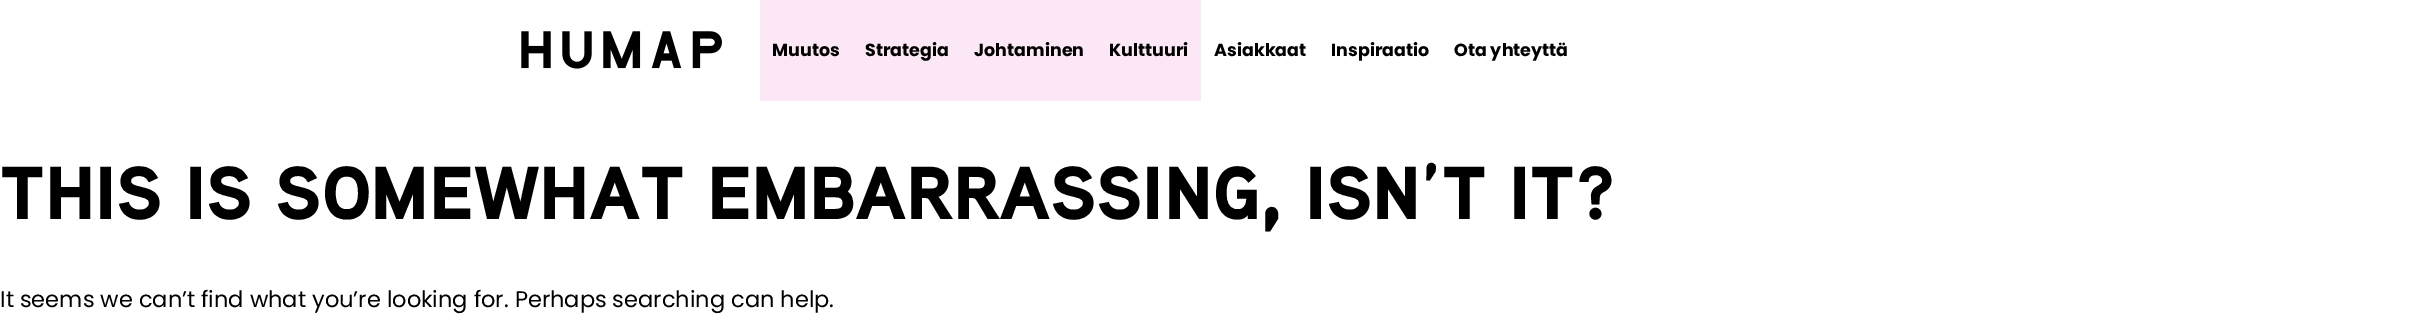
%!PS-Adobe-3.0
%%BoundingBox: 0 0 2435 323
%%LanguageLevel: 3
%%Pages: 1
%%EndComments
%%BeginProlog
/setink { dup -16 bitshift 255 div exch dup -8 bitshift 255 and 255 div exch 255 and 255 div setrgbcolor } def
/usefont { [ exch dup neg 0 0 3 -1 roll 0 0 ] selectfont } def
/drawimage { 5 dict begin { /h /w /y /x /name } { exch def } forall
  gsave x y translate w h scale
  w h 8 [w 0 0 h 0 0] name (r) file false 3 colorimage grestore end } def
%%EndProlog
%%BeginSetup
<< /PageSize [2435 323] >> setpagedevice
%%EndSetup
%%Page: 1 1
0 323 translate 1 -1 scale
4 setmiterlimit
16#FFFFFF setink
0 0 2435 323 rectfill
(img1.raw) 521 31 201 38 drawimage
16#FBE7F5 setink
760 0 441 101 rectfill
/Poppins-Bold 17.5 usefont
16#000000 setink
[
    [(Muutos) 772 56]
    [(Strategia) 865 56]
    [(Johtaminen) 974 56]
    [(Kulttuuri) 1109 56]
    [(Asiakkaat) 1214 56]
    [(Inspiraatio) 1331 56]
    [(Ota yhteyttä) 1454 56]
] { aload pop moveto show } forall
/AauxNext-Black 75 usefont
0 219 moveto (THIS IS SOMEWHAT EMBARRASSING, ISN’T IT?) show
/Poppins-Regular 22.5 usefont
0 307 moveto (It seems we can’t find what you’re looking for. Perhaps searching can help.) show
showpage
%%EOF
